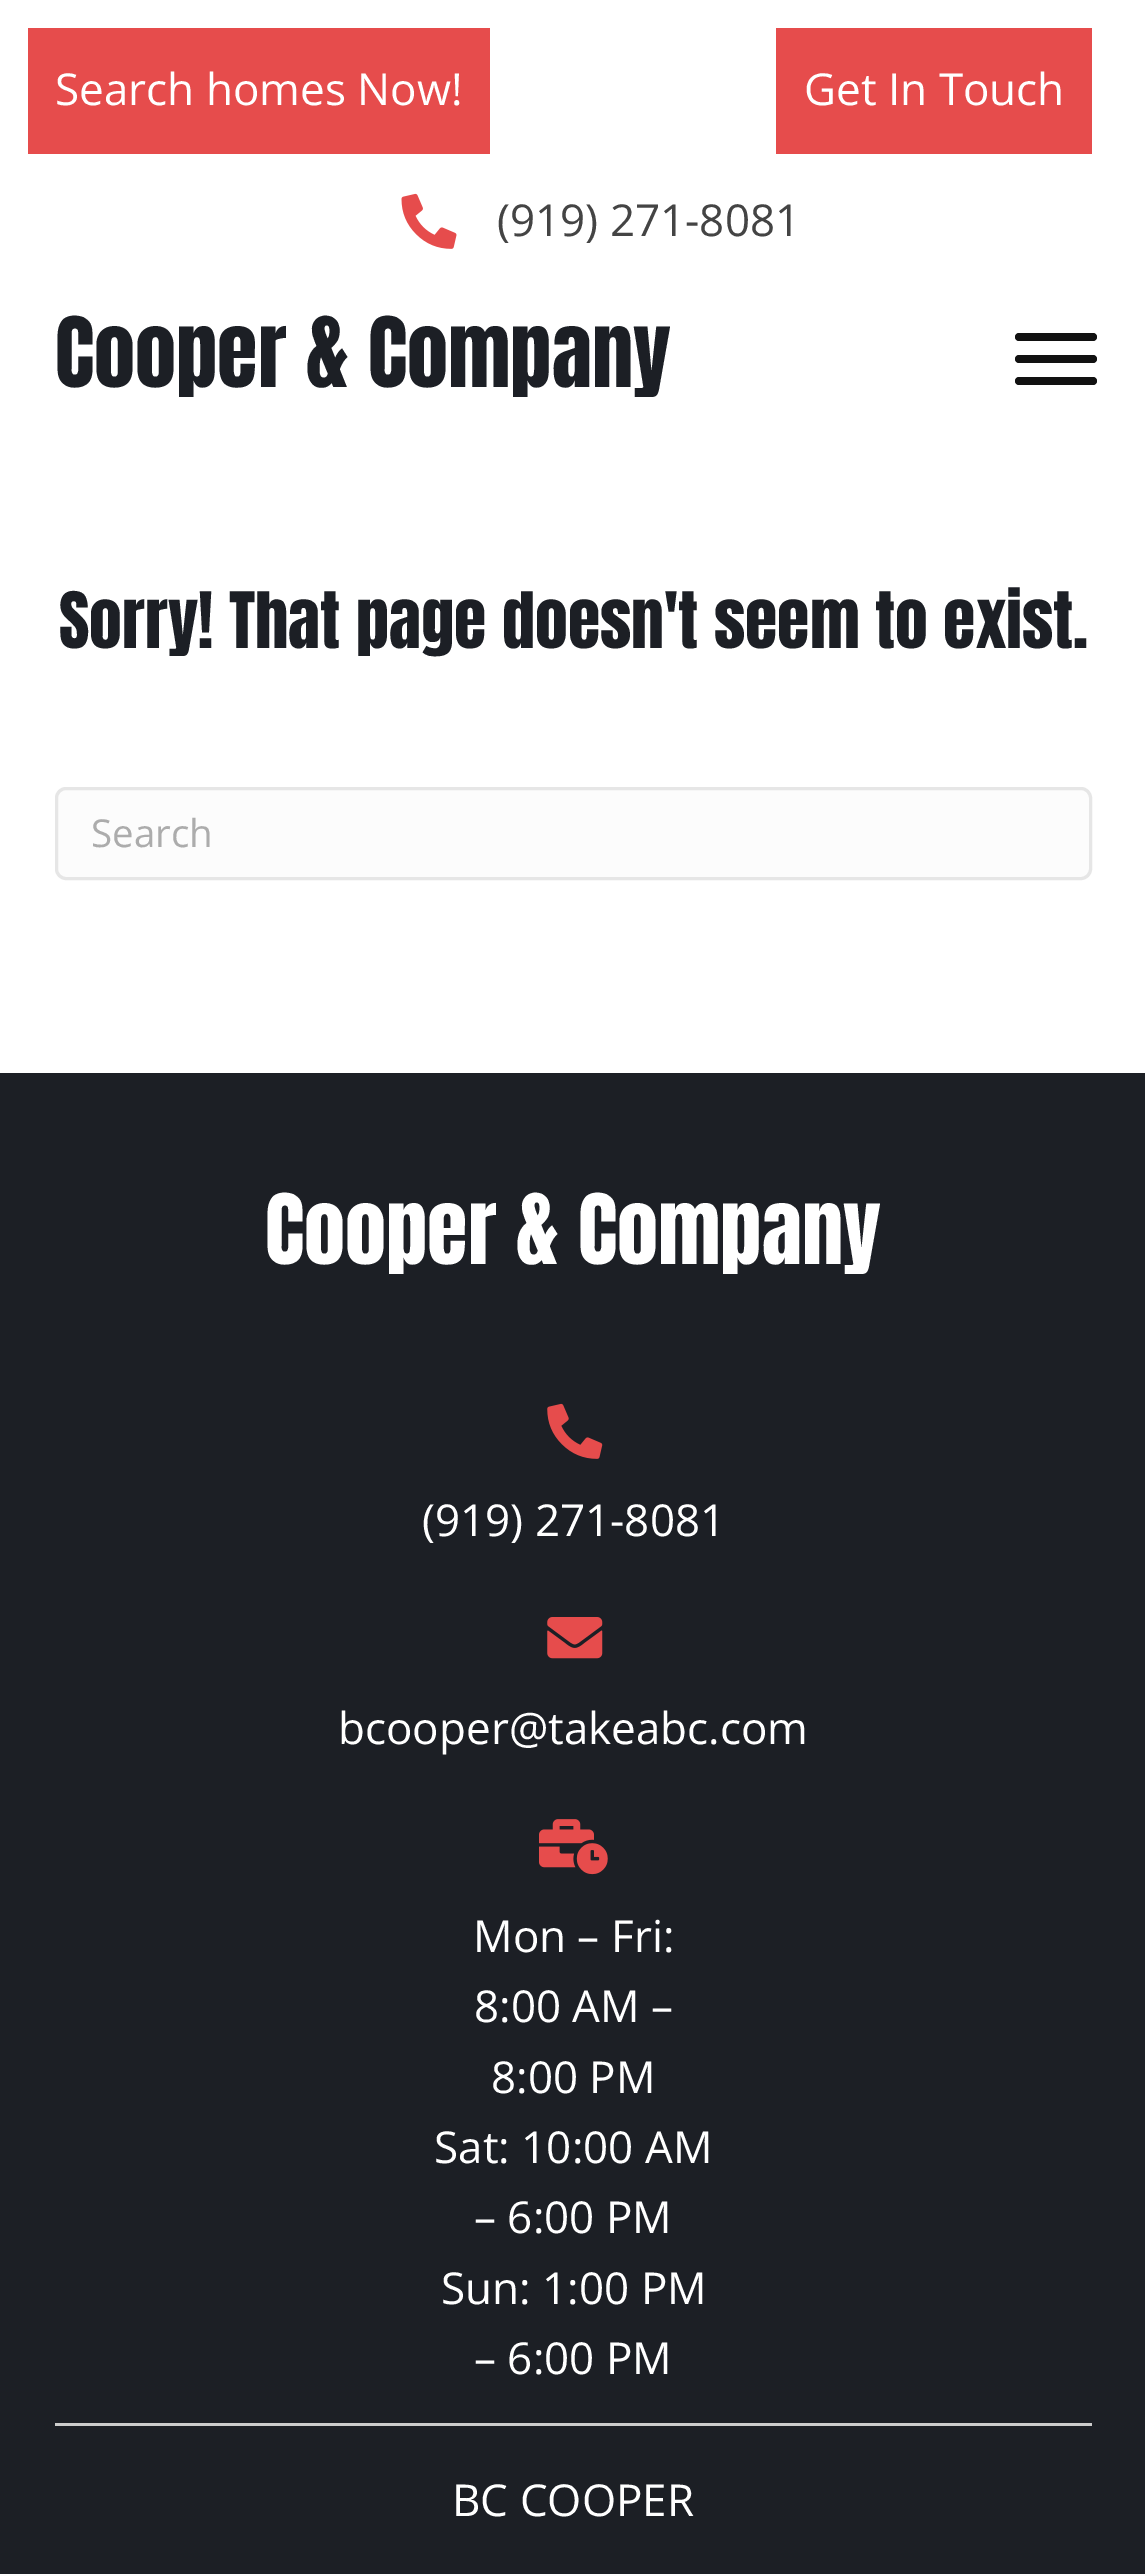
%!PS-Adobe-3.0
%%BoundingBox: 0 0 1145 2574
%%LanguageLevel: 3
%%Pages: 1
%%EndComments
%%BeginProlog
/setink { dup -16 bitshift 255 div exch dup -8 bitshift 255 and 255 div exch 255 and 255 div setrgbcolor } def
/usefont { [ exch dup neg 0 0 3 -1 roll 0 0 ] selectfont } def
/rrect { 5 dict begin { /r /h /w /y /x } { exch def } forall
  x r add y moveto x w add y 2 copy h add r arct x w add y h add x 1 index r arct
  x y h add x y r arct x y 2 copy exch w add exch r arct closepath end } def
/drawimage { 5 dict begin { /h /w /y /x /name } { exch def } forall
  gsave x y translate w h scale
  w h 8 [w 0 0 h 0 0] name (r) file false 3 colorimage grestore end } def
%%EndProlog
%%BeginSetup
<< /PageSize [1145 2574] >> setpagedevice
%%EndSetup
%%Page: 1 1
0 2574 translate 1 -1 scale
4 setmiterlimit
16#FFFFFF setink
0 0 1145 2574 rectfill
16#E64C4C setink
28 28 462 126 rectfill
/OpenSans-Regular 44 usefont
16#FFFFFF setink
55 105 moveto (Search homes Now!) show
16#E64C4C setink
776 28 316 126 rectfill
16#FFFFFF setink
804 105 moveto (Get In Touch) show
(img1.raw) 401 193 56 56 drawimage
16#444444 setink
497 236 moveto (\(919\) 271-8081) show
/Anton-Regular 82.5 usefont
16#1C1F25 setink
55 387 moveto (Cooper & Company) show
16#111111 setink
1015 355 82 8 4 rrect fill
1015 333 82 8 4 rrect fill
1015 377 82 8 4 rrect fill
/Anton-Regular 66 usefont
16#1C1F25 setink
59 648 moveto (Sorry! That page doesn't seem to exist.) show
16#FCFCFC setink
56.5 788.5 1034 90 9.5 rrect gsave fill grestore
16#E6E6E6 setink
3 setlinewidth
stroke
/OpenSans-Regular 38.5 usefont
16#ACACAC setink
91 847 moveto (Search) show
16#1C1F25 setink
0 1073 1145 1501 rectfill
/Anton-Regular 82.5 usefont
16#FFFFFF setink
265 1264 moveto (Cooper & Company) show
(img2.raw) 547 1403 56 56 drawimage
/OpenSans-Regular 44 usefont
422 1536 moveto (\(919\) 271-8081) show
(img3.raw) 547 1617 56 42 drawimage
338 1744 moveto (bcooper@takeabc.com) show
(img4.raw) 539 1819 69 56 drawimage
[
    [(Mon – Fri:) 473 1952]
    [(8:00 AM –) 474 2022]
    [(8:00 PM) 491 2093]
    [(Sat: 10:00 AM) 434 2163]
    [(– 6:00 PM) 474 2233]
    [(Sun: 1:00 PM) 441 2304]
    [(– 6:00 PM) 474 2374]
] { aload pop moveto show } forall
16#CCCCCC setink
55 2423 1037 3 rectfill
16#FFFFFF setink
452 2516 moveto (BC COOPER) show
showpage
%%EOF
